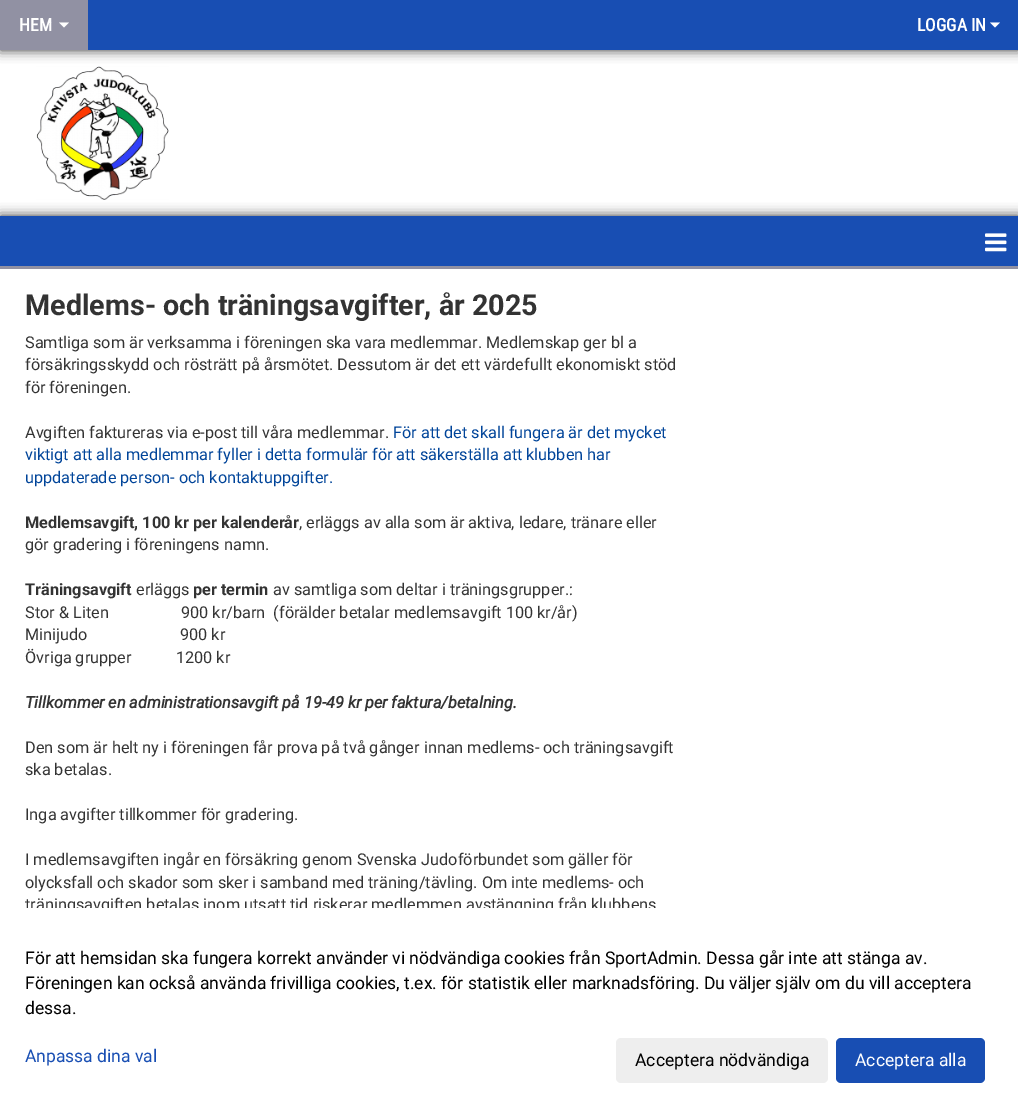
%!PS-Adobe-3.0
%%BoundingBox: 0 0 1018 1107
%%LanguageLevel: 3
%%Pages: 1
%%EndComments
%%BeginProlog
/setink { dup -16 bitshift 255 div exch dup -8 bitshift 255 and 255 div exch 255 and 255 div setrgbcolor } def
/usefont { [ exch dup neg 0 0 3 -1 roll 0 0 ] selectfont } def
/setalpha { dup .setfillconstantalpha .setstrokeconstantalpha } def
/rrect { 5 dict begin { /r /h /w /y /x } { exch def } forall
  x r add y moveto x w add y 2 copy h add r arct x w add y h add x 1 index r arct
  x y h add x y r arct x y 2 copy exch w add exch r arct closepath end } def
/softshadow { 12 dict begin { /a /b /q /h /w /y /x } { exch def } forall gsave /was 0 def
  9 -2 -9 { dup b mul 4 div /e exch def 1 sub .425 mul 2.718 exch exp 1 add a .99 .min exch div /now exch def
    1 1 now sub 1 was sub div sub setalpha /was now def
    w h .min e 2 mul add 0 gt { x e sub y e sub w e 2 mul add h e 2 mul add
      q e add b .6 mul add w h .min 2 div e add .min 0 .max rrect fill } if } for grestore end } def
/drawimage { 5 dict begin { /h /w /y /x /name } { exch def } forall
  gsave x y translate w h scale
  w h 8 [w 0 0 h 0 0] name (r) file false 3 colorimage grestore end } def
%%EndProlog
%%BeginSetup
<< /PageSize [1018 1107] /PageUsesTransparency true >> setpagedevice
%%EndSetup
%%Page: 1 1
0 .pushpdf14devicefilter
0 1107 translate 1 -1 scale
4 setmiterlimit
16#FFFFFF setink
0 0 1018 1107 rectfill
16#333333 setink
0 0 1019 50 0 6 1 softshadow
16#184EB3 setink
88 0 930 50 rectfill
16#9191A3 setink
0 0 88 50 rectfill
/RobotoCondensed-Bold 17.5 usefont
16#FFFFFF setink
19 31 moveto (HEM) show
59 22.5 moveto 69 22.5 lineto 64 27.5 lineto closepath fill
917 31 moveto (LOGGA IN) show
990 22.5 moveto 1000 22.5 lineto 995 27.5 lineto closepath fill
16#333333 setink
0 216 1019 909 0 6 1 softshadow
(img1.raw) 36 66 133 134 drawimage
[
    [0 269 1018 639 16#FFFFFF]
    [0 216 1018 50 16#184EB3]
    [0 266 1018 3 16#9191A3]
] { aload pop setink rectfill } forall
(img2.raw) 985 233 22 19 drawimage
/Roboto-Bold 28.75 usefont
16#333333 setink
25 315 moveto (Medlems- och träningsavgifter, år 2025) show
/Roboto-Regular 16.25 usefont
[
    [(Samtliga som är verksamma i föreningen ska vara medlemmar. Medlemskap ger bl a) 25 348]
    [(försäkringsskydd och rösträtt på årsmötet. Dessutom är det ett värdefullt ekonomiskt stöd) 25 370]
    [(för föreningen.) 25 393]
    [(Avgiften faktureras via e-post till våra medlemmar.) 25 438]
] { aload pop moveto show } forall
16#004499 setink
[
    [(För att det skall fungera är det mycket) 393 438]
    [(viktigt att alla medlemmar fyller i detta formulär för att säkerställa att klubben har) 25 460]
    [(uppdaterade person- och kontaktuppgifter.) 25 483]
] { aload pop moveto show } forall
/Roboto-Bold 16.25 usefont
16#333333 setink
25 528 moveto (Medlemsavgift, 100 kr per kalenderår) show
/Roboto-Regular 16.25 usefont
299 528 moveto (, erläggs av alla som är aktiva, ledare, tränare eller) show
25 550 moveto (gör gradering i föreningens namn.) show
/Roboto-Bold 16.25 usefont
25 595 moveto (Träningsavgift) show
/Roboto-Regular 16.25 usefont
136 595 moveto (erläggs) show
/Roboto-Bold 16.25 usefont
193 595 moveto (per termin) show
/Roboto-Regular 16.25 usefont
[
    [(av samtliga som deltar i träningsgrupper.:) 273 595]
    [(Stor & Liten                  900 kr/barn  \(förälder betalar medlemsavgift 100 kr/år\)) 25 618]
    [(Minijudo                       900 kr) 25 640]
    [(Övriga grupper           1200 kr) 25 663]
] { aload pop moveto show } forall
/Roboto-BoldItalic 16.25 usefont
25 708 moveto (Tillkommer en administrationsavgift på 19-49 kr per faktura/betalning.) show
/Roboto-Regular 16.25 usefont
[
    [(Den som är helt ny i föreningen får prova på två gånger innan medlems- och träningsavgift) 25 753]
    [(ska betalas.) 25 775]
    [(Inga avgifter tillkommer för gradering.) 25 820]
    [(I medlemsavgiften ingår en försäkring genom Svenska Judoförbundet som gäller för) 25 865]
    [(olycksfall och skador som sker i samband med träning/tävling. Om inte medlems- och) 25 888]
    [(träningsavgiften betalas inom utsatt tid riskerar medlemmen avstängning från klubbens) 25 910]
] { aload pop moveto show } forall
16#FFFFFF setink
0 908 1018 199 rectfill
/Roboto-Regular 17.5 usefont
16#000000 setink
[
    [(För att hemsidan ska fungera korrekt använder vi nödvändiga cookies från SportAdmin. Dessa går inte att stänga av.) 25 964]
    [(Föreningen kan också använda frivilliga cookies, t.ex. för statistik eller marknadsföring. Du väljer själv om du vill acceptera) 25 989]
    [(dessa.) 25 1014]
] { aload pop moveto show } forall
16#184EB3 setink
25 1062 moveto (Anpassa dina val) show
16#EEEEEE setink
616 1038 212 45 5 rrect fill
16#000000 setink
635 1066 moveto (Acceptera nödvändiga) show
16#184EB3 setink
836 1038 149 45 5 rrect fill
16#FFFFFF setink
855 1066 moveto (Acceptera alla) show
.poppdf14devicefilter showpage
%%EOF
